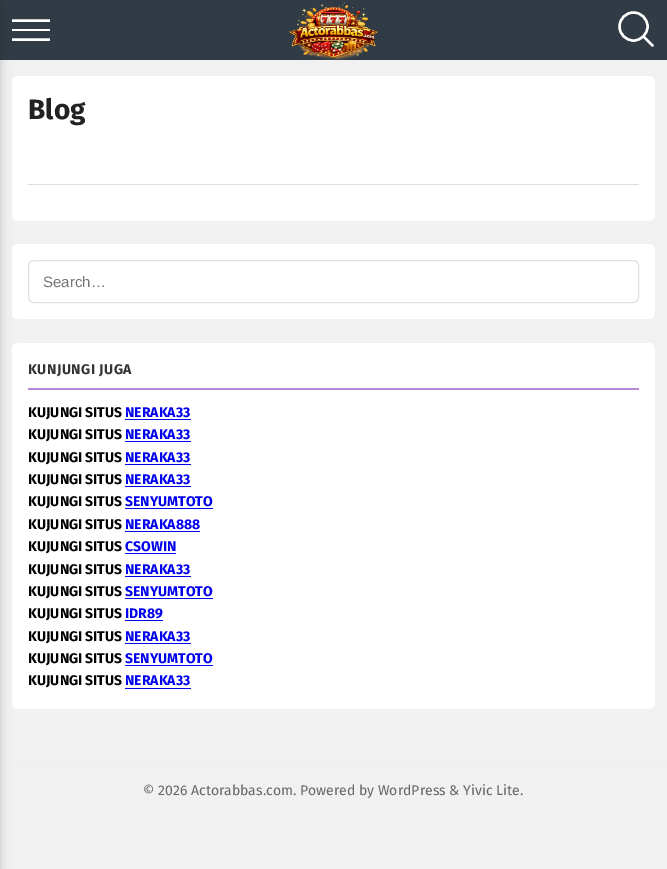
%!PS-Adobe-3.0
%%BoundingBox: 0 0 667 869
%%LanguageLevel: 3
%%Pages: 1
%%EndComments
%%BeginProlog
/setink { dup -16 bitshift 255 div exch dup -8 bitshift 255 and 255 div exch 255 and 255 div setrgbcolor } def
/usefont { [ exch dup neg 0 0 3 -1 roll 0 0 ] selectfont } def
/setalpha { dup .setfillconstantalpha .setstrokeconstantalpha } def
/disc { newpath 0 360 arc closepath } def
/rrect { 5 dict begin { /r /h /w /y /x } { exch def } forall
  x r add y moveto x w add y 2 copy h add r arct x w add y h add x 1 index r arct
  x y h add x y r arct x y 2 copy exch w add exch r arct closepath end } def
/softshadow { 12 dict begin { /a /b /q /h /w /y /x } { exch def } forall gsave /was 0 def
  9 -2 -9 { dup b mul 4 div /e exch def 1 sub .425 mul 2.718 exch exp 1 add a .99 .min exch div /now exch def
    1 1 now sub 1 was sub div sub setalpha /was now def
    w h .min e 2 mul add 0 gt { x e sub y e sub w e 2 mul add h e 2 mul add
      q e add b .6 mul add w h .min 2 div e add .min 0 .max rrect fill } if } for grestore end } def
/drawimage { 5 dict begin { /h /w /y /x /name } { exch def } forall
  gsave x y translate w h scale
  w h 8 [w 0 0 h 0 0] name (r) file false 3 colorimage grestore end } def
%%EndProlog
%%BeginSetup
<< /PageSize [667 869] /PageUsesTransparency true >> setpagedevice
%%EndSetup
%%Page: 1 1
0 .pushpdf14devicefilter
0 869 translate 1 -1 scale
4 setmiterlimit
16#F1F1F1 setink
0 0 667 869 rectfill
16#313B45 setink
0 0 667 60 rectfill
16#FFFFFF setink
2.4 setlinewidth
12 20.5 moveto 50 20.5 lineto stroke
12 29 38 2 rectfill
12 39.5 moveto 50 39.5 lineto stroke
12 76 643 145 6 rrect fill
12 244 643 75 6 rrect fill
12 343 643 366 6 rrect fill
16#EEEEEE setink
0 765 667 1 rectfill
16#000000 setink
-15 5 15 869 0 5 0.2 softshadow
(img1.raw) 289 2 89 58 drawimage
16#FFFFFF setink
633.5 26.5 14 disc stroke
1 setlinecap
1 setlinejoin
644.5 37.5 moveto 652.5 45.5 lineto stroke
/FiraSans-Bold 28 usefont
16#222222 setink
28 119 moveto (Blog) show
16#DDDDDD setink
28 184 611 1 rectfill
16#E0E0E0 setink
1 setlinewidth
0 setlinecap
0 setlinejoin
28.5 260.5 610 42 5.5 rrect stroke
/LiberationSans-Regular 15 usefont
16#757575 setink
43 287 moveto (Search…) show
16#B48AD7 setink
28 388 611 2 rectfill
/FiraSans-Bold 14 usefont
16#333333 setink
28 374 moveto 0.5 0 (KUNJUNGI JUGA) ashow
16#000000 setink
28 417 moveto (KUJUNGI SITUS) show
16#0000EE setink
125 417 moveto (NERAKA33) show
125 419 66 1 rectfill
16#000000 setink
28 439 moveto (KUJUNGI SITUS) show
16#0000EE setink
125 439 moveto (NERAKA33) show
125 441 66 1 rectfill
16#000000 setink
28 462 moveto (KUJUNGI SITUS) show
16#0000EE setink
125 462 moveto (NERAKA33) show
125 464 66 1 rectfill
16#000000 setink
28 484 moveto (KUJUNGI SITUS) show
16#0000EE setink
125 484 moveto (NERAKA33) show
125 486 66 1 rectfill
16#000000 setink
28 506 moveto (KUJUNGI SITUS) show
16#0000EE setink
125 506 moveto (SENYUMTOTO) show
125 508 88 1 rectfill
16#000000 setink
28 529 moveto (KUJUNGI SITUS) show
16#0000EE setink
125 529 moveto (NERAKA888) show
125 531 75 1 rectfill
16#000000 setink
28 551 moveto (KUJUNGI SITUS) show
16#0000EE setink
125 551 moveto (CSOWIN) show
125 553 51 1 rectfill
16#000000 setink
28 574 moveto (KUJUNGI SITUS) show
16#0000EE setink
125 574 moveto (NERAKA33) show
125 576 66 1 rectfill
16#000000 setink
28 596 moveto (KUJUNGI SITUS) show
16#0000EE setink
125 596 moveto (SENYUMTOTO) show
125 598 88 1 rectfill
16#000000 setink
28 618 moveto (KUJUNGI SITUS) show
16#0000EE setink
125 618 moveto (IDR89) show
125 620 38 1 rectfill
16#000000 setink
28 641 moveto (KUJUNGI SITUS) show
16#0000EE setink
125 641 moveto (NERAKA33) show
125 643 66 1 rectfill
16#000000 setink
28 663 moveto (KUJUNGI SITUS) show
16#0000EE setink
125 663 moveto (SENYUMTOTO) show
125 665 88 1 rectfill
16#000000 setink
28 685 moveto (KUJUNGI SITUS) show
16#0000EE setink
125 685 moveto (NERAKA33) show
125 688 66 1 rectfill
/FiraSans-Regular 14 usefont
16#666666 setink
143 795 moveto (© 2026 Actorabbas.com. Powered by WordPress & Yivic Lite.) show
.poppdf14devicefilter showpage
%%EOF
